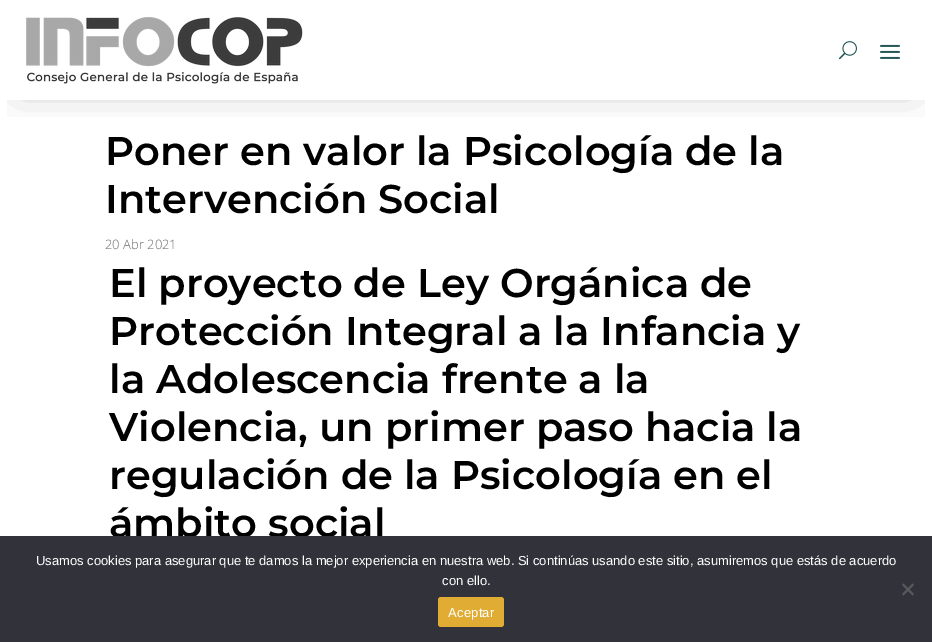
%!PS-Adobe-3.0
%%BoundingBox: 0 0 932 642
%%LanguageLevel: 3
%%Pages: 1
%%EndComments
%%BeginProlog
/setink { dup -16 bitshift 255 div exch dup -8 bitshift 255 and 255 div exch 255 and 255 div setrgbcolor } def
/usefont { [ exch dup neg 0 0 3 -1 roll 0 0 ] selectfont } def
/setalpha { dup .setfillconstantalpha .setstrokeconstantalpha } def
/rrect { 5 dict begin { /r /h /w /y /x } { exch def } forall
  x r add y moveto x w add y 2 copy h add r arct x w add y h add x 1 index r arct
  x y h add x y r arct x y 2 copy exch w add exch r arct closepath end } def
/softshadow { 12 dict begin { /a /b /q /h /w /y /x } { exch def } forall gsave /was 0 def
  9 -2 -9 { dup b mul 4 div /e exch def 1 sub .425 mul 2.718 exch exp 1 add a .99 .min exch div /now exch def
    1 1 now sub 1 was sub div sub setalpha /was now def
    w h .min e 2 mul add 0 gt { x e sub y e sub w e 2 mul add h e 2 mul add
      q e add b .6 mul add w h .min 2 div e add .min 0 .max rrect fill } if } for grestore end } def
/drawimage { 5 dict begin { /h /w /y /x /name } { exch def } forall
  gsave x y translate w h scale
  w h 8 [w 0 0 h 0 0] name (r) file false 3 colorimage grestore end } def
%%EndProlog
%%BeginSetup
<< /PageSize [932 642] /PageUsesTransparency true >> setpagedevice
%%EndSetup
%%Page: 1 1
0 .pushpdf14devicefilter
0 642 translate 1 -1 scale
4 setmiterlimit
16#FFFFFF setink
0 0 932 642 rectfill
gsave
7 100 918 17 rectclip
16#000000 setink
20 28 892 60 0 19.5 0.3 softshadow
grestore
(img1.raw) 26 17 277 67 drawimage
(img2.raw) 839 41 18 19 drawimage
(img3.raw) 880 44 20 15 drawimage
/Montserrat-Thin 40 usefont
16#000000 setink
105 165 moveto (Poner en valor la Psicología de la) show
105 213 moveto (Intervención Social) show
/OpenSans-Light 13 usefont
16#666666 setink
105 249 moveto (20 Abr 2021) show
/Montserrat-Thin 40 usefont
16#000000 setink
[
    [(El proyecto de Ley Orgánica de) 109 297]
    [(Protección Integral a la Infancia y) 109 345]
    [(la Adolescencia frente a la) 109 393]
    [(Violencia, un primer paso hacia la) 109 441]
    [(regulación de la Psicología en el) 109 489]
    [(ámbito social) 109 537]
] { aload pop moveto show } forall
16#32323A setink
0 536 932 106 rectfill
/LiberationSans-Regular 13 usefont
16#FFFFFF setink
36 565 moveto (Usamos cookies para asegurar que te damos la mejor experiencia en nuestra web. Si continúas usando este sitio, asumiremos que estás de acuerdo) show
442 585 moveto (con ello.) show
16#59595D setink
912.5 583.5 moveto 914 585 lineto 903.5 595.5 lineto 902 594 lineto closepath fill
902 585 moveto 903.5 583.5 lineto 914 594 lineto 912.5 595.5 lineto closepath fill
16#E0AC33 setink
438 597 66 30 3 rrect fill
16#FFFFFF setink
448 617 moveto 0.25 0 (Aceptar) ashow
.poppdf14devicefilter showpage
%%EOF
